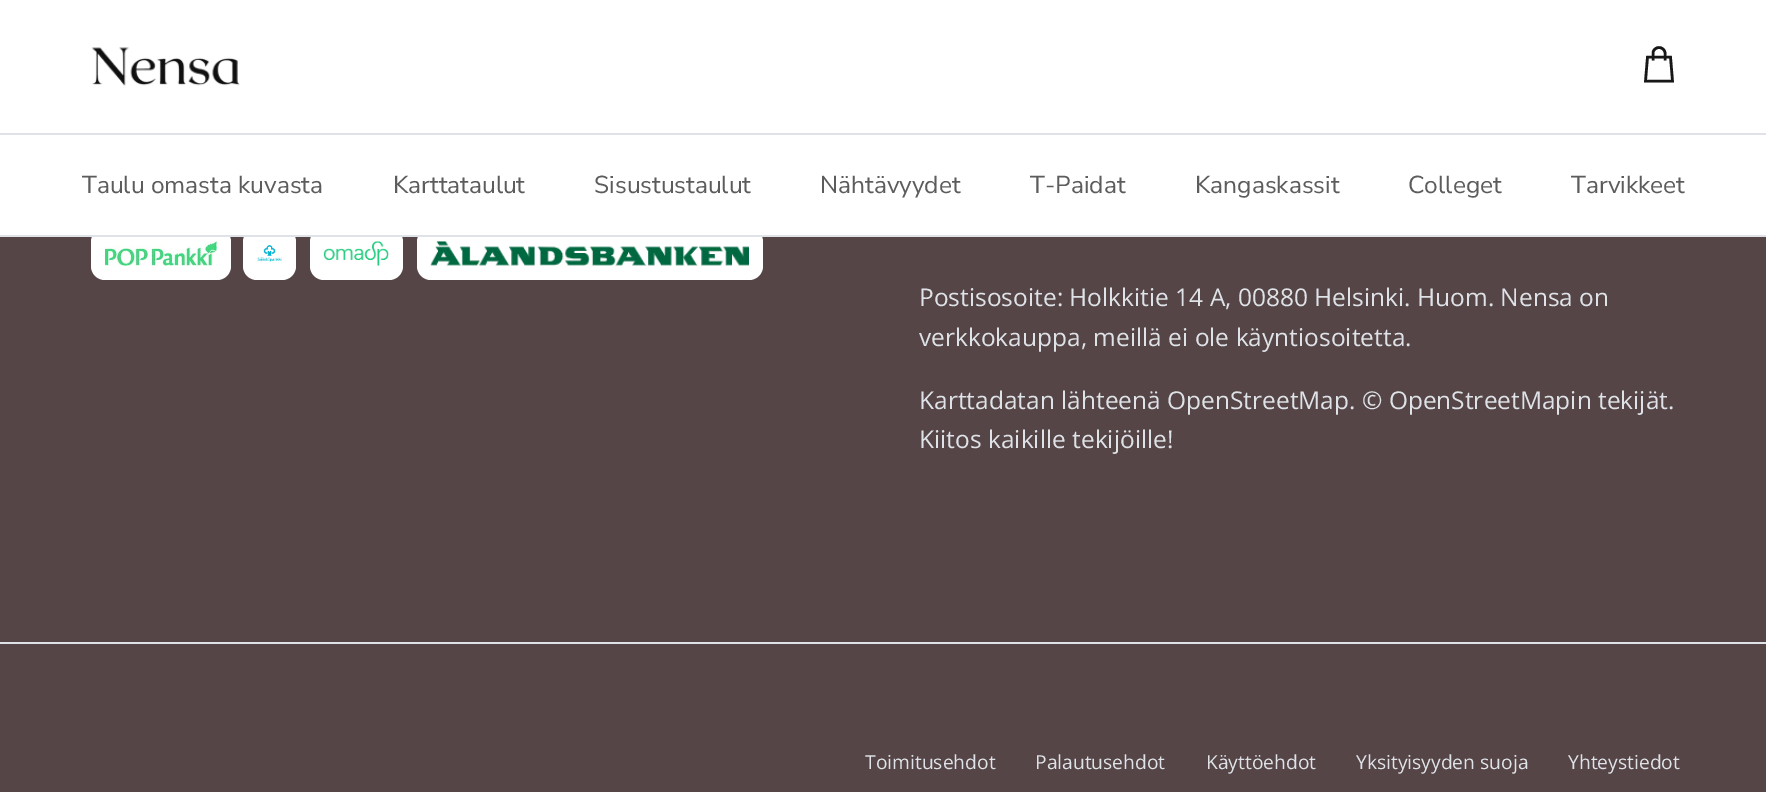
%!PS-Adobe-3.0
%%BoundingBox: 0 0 1766 792
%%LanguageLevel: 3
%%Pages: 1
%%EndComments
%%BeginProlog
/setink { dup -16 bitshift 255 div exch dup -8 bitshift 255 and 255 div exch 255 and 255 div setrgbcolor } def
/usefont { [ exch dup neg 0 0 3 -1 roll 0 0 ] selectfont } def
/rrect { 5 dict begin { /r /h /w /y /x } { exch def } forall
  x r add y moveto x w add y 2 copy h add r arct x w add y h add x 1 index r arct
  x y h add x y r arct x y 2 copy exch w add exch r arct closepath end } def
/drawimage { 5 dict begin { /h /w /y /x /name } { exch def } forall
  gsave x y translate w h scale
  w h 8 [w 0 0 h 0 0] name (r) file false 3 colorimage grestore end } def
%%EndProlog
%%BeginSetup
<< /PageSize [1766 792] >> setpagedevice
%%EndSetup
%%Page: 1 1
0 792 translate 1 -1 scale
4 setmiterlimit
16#554546 setink
0 0 1766 792 rectfill
16#FFFFFF setink
0 0 1766 133 rectfill
16#DFE3E8 setink
0 133 1766 2 rectfill
(img1.raw) 91 47 149 39 drawimage
16#171717 setink
2.6 setlinewidth
1665 60.5 moveto 1665 53 lineto 1665 50 1662 47.5 1659 47.5 curveto 1656 47.5 1653 50 1653 53 curveto 1653 60.5 lineto 1647.5 57 moveto 1670.5 57 lineto 1672.5 81 lineto 1645.5 81 lineto closepath stroke
16#FFFFFF setink
91 228 140 52 14 rrect fill
243 228 53 52 14 rrect fill
310 228 93 52 14 rrect fill
417 228 346 52 14 rrect fill
16#DFE3E8 setink
0 235 1766 2 rectfill
16#FFFFFF setink
0 135 1766 100 rectfill
/NunitoSans-Regular 24.5 usefont
16#5C5C5C setink
[
    [(Taulu omasta kuvasta) 82 193]
    [(Karttataulut) 393 193]
    [(Sisustustaulut) 594 193]
    [(Nähtävyydet) 820 193]
    [(T-Paidat) 1030 193]
    [(Kangaskassit) 1195 193]
    [(Colleget) 1408 193]
    [(Tarvikkeet) 1571 193]
] { aload pop moveto show } forall
(img2.raw) 105 241 112 25 drawimage
(img3.raw) 257 245 25 17 drawimage
(img4.raw) 323 241 66 25 drawimage
(img5.raw) 430 241 319 25 drawimage
/OpenSans-Regular 24.5 usefont
16#DFE3E8 setink
[
    [(Postisosoite: Holkkitie 14 A, 00880 Helsinki. Huom. Nensa on) 919 306]
    [(verkkokauppa, meillä ei ole käyntiosoitetta.) 919 346]
    [(Karttadatan lähteenä OpenStreetMap. © OpenStreetMapin tekijät.) 919 409]
    [(Kiitos kaikille tekijöille!) 919 448]
] { aload pop moveto show } forall
0 642 1766 2 rectfill
/OpenSans-Regular 19.25 usefont
[
    [(Toimitusehdot) 865 769]
    [(Palautusehdot) 1035 769]
    [(Käyttöehdot) 1206 769]
    [(Yksityisyyden suoja) 1356 769]
    [(Yhteystiedot) 1568 769]
] { aload pop moveto show } forall
showpage
%%EOF
